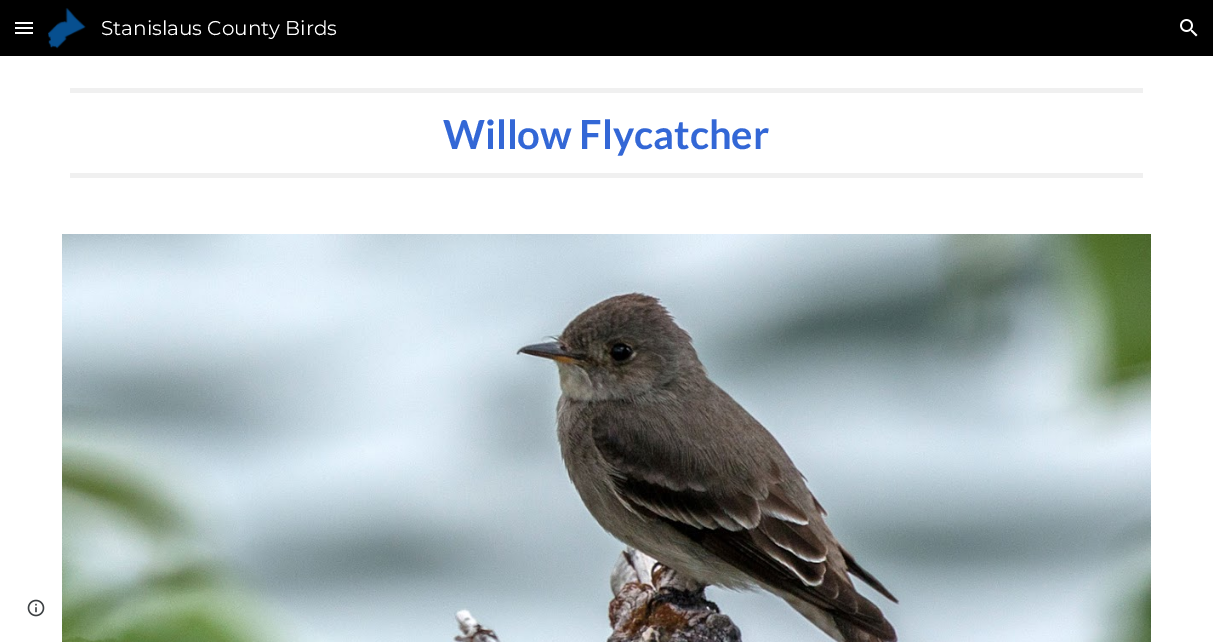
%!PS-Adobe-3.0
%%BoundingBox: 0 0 1213 642
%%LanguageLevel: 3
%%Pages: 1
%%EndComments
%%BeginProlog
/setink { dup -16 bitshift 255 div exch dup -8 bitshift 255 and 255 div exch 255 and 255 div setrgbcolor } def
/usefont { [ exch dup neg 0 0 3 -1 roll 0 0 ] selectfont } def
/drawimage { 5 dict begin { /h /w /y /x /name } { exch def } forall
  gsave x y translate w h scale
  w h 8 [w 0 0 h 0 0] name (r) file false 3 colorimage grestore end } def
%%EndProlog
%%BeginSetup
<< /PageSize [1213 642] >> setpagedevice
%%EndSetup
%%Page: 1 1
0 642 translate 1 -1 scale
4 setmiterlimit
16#FFFFFF setink
0 0 1213 642 rectfill
[
    [0 0 1213 56 16#000000]
    [15 22 18 2 16#FFFFFF]
    [15 27 18 2 16#FFFFFF]
    [15 32 18 2 16#FFFFFF]
] { aload pop setink rectfill } forall
(img1.raw) 48 8 38 41 drawimage
/Montserrat-Regular 20 usefont
101 35 moveto (Stanislaus County Birds) show
(img2.raw) 1180 19 18 18 drawimage
16#F0F0F0 setink
70 88 1073 5 rectfill
70 173 1073 5 rectfill
/Lato-Bold 40 usefont
16#3367D6 setink
443 149 moveto (Willow Flycatcher) show
(img3.raw) 62 234 1089 408 drawimage
(img4.raw) 27 599 18 18 drawimage
showpage
%%EOF
